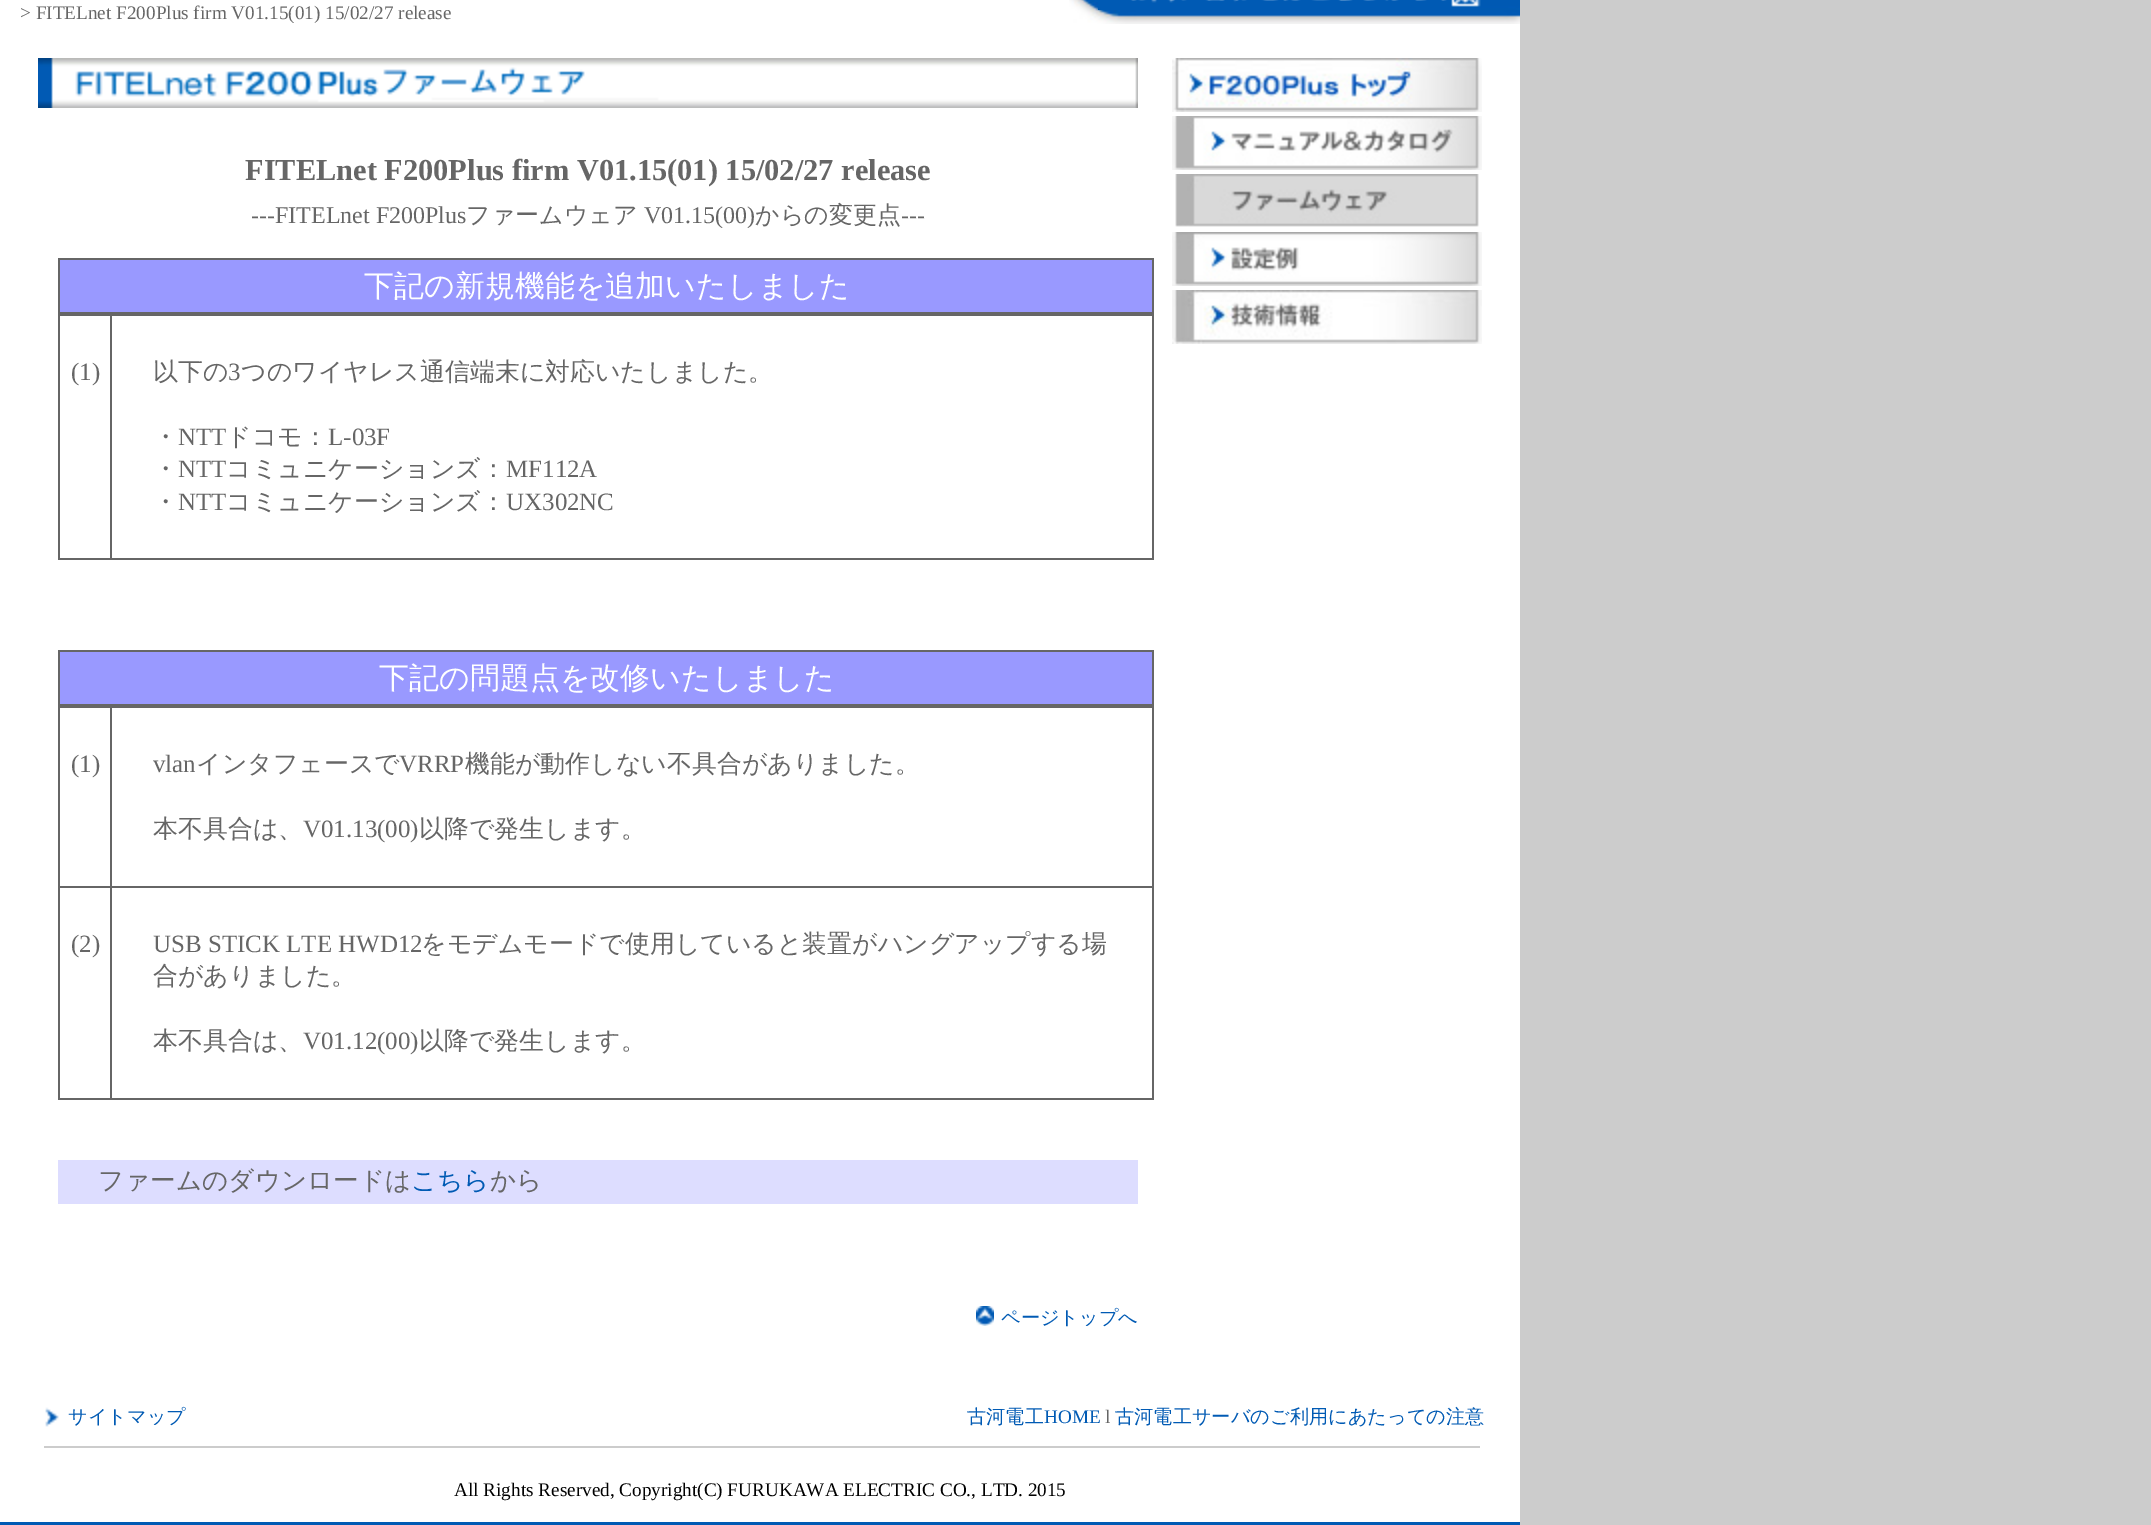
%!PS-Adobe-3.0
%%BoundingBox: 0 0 2151 1525
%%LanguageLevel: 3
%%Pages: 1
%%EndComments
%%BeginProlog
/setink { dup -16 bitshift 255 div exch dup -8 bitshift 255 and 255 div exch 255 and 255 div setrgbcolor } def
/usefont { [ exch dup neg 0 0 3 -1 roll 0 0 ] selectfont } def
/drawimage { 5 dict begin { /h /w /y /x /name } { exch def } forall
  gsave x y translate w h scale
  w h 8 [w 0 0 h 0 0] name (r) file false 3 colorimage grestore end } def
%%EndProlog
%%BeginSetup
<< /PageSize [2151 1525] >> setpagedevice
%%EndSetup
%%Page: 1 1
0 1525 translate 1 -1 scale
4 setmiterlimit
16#CCCCCC setink
0 0 2151 1525 rectfill
16#FFFFFF setink
0 0 1520 1522 rectfill
(img1.raw) 1069 0 451 24 drawimage
/LiberationSerif-Regular 19.2 usefont
16#666666 setink
20 19 moveto (> FITELnet F200Plus firm V01.15\(01\) 15/02/27 release) show
(img2.raw) 1098 0 383 10 drawimage
(img3.raw) 38 58 1100 50 drawimage
/LiberationSerif-Bold 30.4 usefont
245 180 moveto (FITELnet F200Plus firm V01.15\(01\) 15/02/27 release) show
/LiberationSerif-Regular 24 usefont
251 223 moveto (---FITELnet F200Plus) show
/WenQuanYiZenHei-Medium 24 usefont
466 223 moveto (ファームウェア) show
/LiberationSerif-Regular 24 usefont
644 223 moveto (V01.15\(00\)) show
/WenQuanYiZenHei-Medium 24 usefont
755 223 moveto (からの変更点) show
/LiberationSerif-Regular 24 usefont
901 223 moveto (---) show
[
    [58 258 1096 2 16#666666]
    [1152 258 2 56 16#666666]
    [58 312 1096 4 16#666666]
    [58 258 2 56 16#666666]
    [60 260 1092 52 16#9999FF]
] { aload pop setink rectfill } forall
/WenQuanYiZenHei-Medium 30 usefont
16#FFFFFF setink
364 296 moveto (下記の新規機能を追加いたしました) show
[
    [1152 314 2 246 16#666666]
    [58 558 1096 2 16#666666]
    [58 314 2 246 16#666666]
] { aload pop setink rectfill } forall
/LiberationSerif-Regular 24.95 usefont
71 380 moveto (\(1\)) show
110 314 2 246 rectfill
/WenQuanYiZenHei-Medium 24.95 usefont
153 380 moveto (以下の) show
/LiberationSerif-Regular 24.95 usefont
228 380 moveto (3) show
/WenQuanYiZenHei-Medium 24.95 usefont
241 380 moveto (つのワイヤレス通信端末に対応いたしました。) show
153 445 moveto (・) show
/LiberationSerif-Regular 24.95 usefont
178 445 moveto (NTT) show
/WenQuanYiZenHei-Medium 24.95 usefont
226 445 moveto (ドコモ：) show
/LiberationSerif-Regular 24.95 usefont
328 445 moveto (L-03F) show
/WenQuanYiZenHei-Medium 24.95 usefont
153 477 moveto (・) show
/LiberationSerif-Regular 24.95 usefont
178 477 moveto (NTT) show
/WenQuanYiZenHei-Medium 24.95 usefont
226 477 moveto (コミュニケーションズ：) show
/LiberationSerif-Regular 24.95 usefont
506 477 moveto (MF112A) show
/WenQuanYiZenHei-Medium 24.95 usefont
153 510 moveto (・) show
/LiberationSerif-Regular 24.95 usefont
178 510 moveto (NTT) show
/WenQuanYiZenHei-Medium 24.95 usefont
226 510 moveto (コミュニケーションズ：) show
/LiberationSerif-Regular 24.95 usefont
506 510 moveto (UX302NC) show
[
    [58 650 1096 2 16#666666]
    [1152 650 2 56 16#666666]
    [58 704 1096 4 16#666666]
    [58 650 2 56 16#666666]
    [60 652 1092 52 16#9999FF]
] { aload pop setink rectfill } forall
/WenQuanYiZenHei-Medium 30 usefont
16#FFFFFF setink
379 688 moveto (下記の問題点を改修いたしました) show
[
    [1152 706 2 394 16#666666]
    [58 1098 1096 2 16#666666]
    [58 706 2 394 16#666666]
] { aload pop setink rectfill } forall
/LiberationSerif-Regular 24.95 usefont
71 772 moveto (\(1\)) show
[
    [110 886 1044 2 16#666666]
    [110 886 2 214 16#666666]
    [58 886 54 2 16#666666]
    [110 706 2 182 16#666666]
] { aload pop setink rectfill } forall
153 772 moveto (vlan) show
/WenQuanYiZenHei-Medium 24.95 usefont
196 772 moveto (インタフェースで) show
/LiberationSerif-Regular 24.95 usefont
399 772 moveto (VRRP) show
/WenQuanYiZenHei-Medium 24.95 usefont
465 772 moveto (機能が動作しない不具合がありました。) show
153 837 moveto (本不具合は、) show
/LiberationSerif-Regular 24.95 usefont
303 837 moveto (V01.13\(00\)) show
/WenQuanYiZenHei-Medium 24.95 usefont
419 837 moveto (以降で発生します。) show
/LiberationSerif-Regular 24.95 usefont
71 952 moveto (\(2\)) show
153 952 moveto (USB STICK LTE HWD12) show
/WenQuanYiZenHei-Medium 24.95 usefont
[
    [(をモデムモードで使用していると装置がハングアップする場) 421 952]
    [(合がありました。) 153 984]
    [(本不具合は、) 153 1049]
] { aload pop moveto show } forall
/LiberationSerif-Regular 24.95 usefont
303 1049 moveto (V01.12\(00\)) show
/WenQuanYiZenHei-Medium 24.95 usefont
419 1049 moveto (以降で発生します。) show
16#DDDDFF setink
58 1160 1080 44 rectfill
/WenQuanYiZenHei-Medium 25.6 usefont
16#666666 setink
98 1189 moveto (ファームのダウンロードは) show
16#005AB4 setink
411 1189 moveto (こちら) show
16#666666 setink
490 1189 moveto (から) show
(img4.raw) 976 1306 18 20 drawimage
/WenQuanYiZenHei-Medium 19.2 usefont
16#005AB4 setink
1001 1324 moveto (ページトップへ) show
(img5.raw) 1172 58 310 54 drawimage
(img6.raw) 1172 116 310 54 drawimage
(img7.raw) 1175 174 304 53 drawimage
(img8.raw) 1172 232 310 54 drawimage
(img9.raw) 1172 290 310 54 drawimage
(img10.raw) 45 1407 14 20 drawimage
68 1423 moveto (サイトマップ) show
967 1423 moveto (古河電工) show
/LiberationSerif-Regular 19.2 usefont
1044 1423 moveto (HOME) show
16#666666 setink
1105 1423 moveto (l) show
/WenQuanYiZenHei-Medium 19.2 usefont
16#005AB4 setink
1115 1423 moveto (古河電工サーバのご利用にあたっての注意) show
16#CCCCCC setink
44 1446 1436 2 rectfill
/LiberationSerif-Regular 19.2 usefont
16#000000 setink
454 1496 moveto (All Rights Reserved, Copyright\(C\) FURUKAWA ELECTRIC CO., LTD. 2015) show
16#005AB4 setink
0 1522 1520 3 rectfill
showpage
%%EOF
